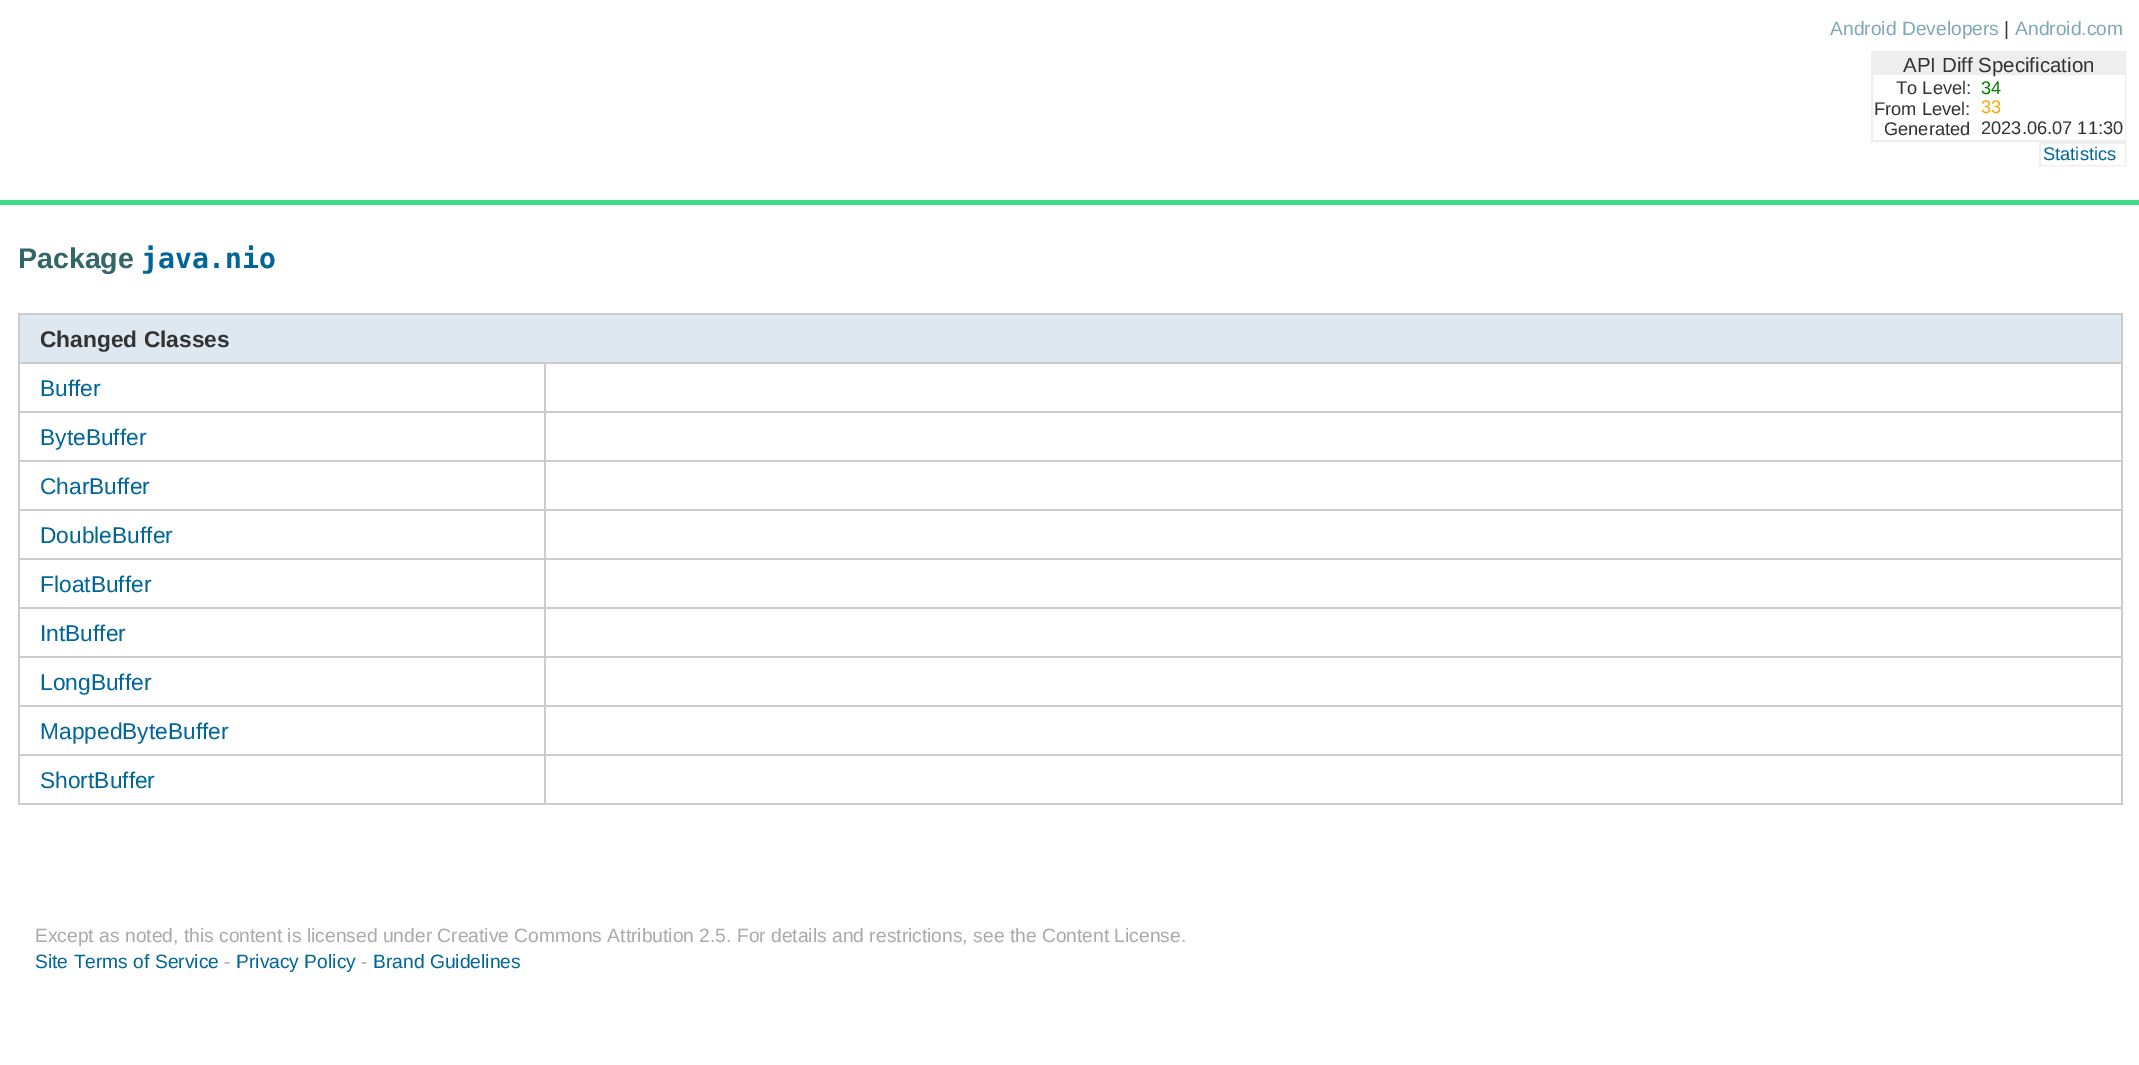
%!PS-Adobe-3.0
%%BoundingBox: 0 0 2139 1065
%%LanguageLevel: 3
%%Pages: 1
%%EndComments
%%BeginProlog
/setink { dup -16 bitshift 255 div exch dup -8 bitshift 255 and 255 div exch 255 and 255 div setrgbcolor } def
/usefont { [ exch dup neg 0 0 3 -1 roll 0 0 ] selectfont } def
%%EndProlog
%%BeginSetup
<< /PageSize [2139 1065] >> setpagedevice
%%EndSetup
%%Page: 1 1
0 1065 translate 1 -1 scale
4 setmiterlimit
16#FFFFFF setink
0 0 2139 1065 rectfill
16#3DDC84 setink
0 200 2139 5 rectfill
/LiberationSans-Regular 19.25 usefont
16#7FA9B5 setink
1830 35 moveto (Android Developers) show
16#333333 setink
2004 35 moveto (|) show
16#7FA9B5 setink
2015 35 moveto (Android.com) show
16#EEEEEE setink
2 setlinewidth
1872 52 253 89 rectstroke
1873 53 251 22 rectfill
/LiberationSans-Regular 20.5 usefont
16#333333 setink
1903 72 moveto (API Diff Specification) show
/LiberationSans-Regular 18.25 usefont
1896 94 moveto (To Level:) show
16#FFFFFF setink
2124 75 1 65 rectfill
16#008000 setink
1981 94 moveto (34) show
16#333333 setink
1874 115 moveto (From Level:) show
16#FFA500 setink
1981 113 moveto (33) show
16#333333 setink
1884 135 moveto (Generated) show
1981 134 moveto (2023.06.07 11:30) show
16#EEEEEE setink
2040 143 85 22 rectstroke
16#FFFFFF setink
2041 144 84 21 rectfill
16#006699 setink
2043 160 moveto (Statistics) show
/LiberationSans-Bold 28.5 usefont
16#336666 setink
18 268 moveto (Package) show
/DejaVuSansMono-Bold 28 usefont
16#006699 setink
141 268 moveto (java.nio) show
[
    [20 315 2101 47 16#DEE8F1]
    [18 313 2105 2 16#CCCCCC]
    [544 362 1579 2 16#CCCCCC]
    [544 411 1579 2 16#CCCCCC]
    [544 460 1579 2 16#CCCCCC]
    [544 509 1579 2 16#CCCCCC]
    [544 558 1579 2 16#CCCCCC]
    [544 607 1579 2 16#CCCCCC]
    [544 656 1579 2 16#CCCCCC]
    [544 705 1579 2 16#CCCCCC]
    [544 754 1579 2 16#CCCCCC]
    [2121 754 2 51 16#CCCCCC]
    [2121 705 2 51 16#CCCCCC]
    [2121 656 2 51 16#CCCCCC]
    [2121 607 2 51 16#CCCCCC]
    [2121 558 2 51 16#CCCCCC]
    [2121 509 2 51 16#CCCCCC]
    [2121 460 2 51 16#CCCCCC]
    [2121 411 2 51 16#CCCCCC]
    [2121 362 2 51 16#CCCCCC]
    [2121 313 2 51 16#CCCCCC]
    [544 803 1579 2 16#CCCCCC]
    [544 754 2 51 16#CCCCCC]
    [18 754 528 2 16#CCCCCC]
    [544 705 2 51 16#CCCCCC]
    [18 705 528 2 16#CCCCCC]
    [544 656 2 51 16#CCCCCC]
    [18 656 528 2 16#CCCCCC]
    [544 607 2 51 16#CCCCCC]
    [18 607 528 2 16#CCCCCC]
    [544 558 2 51 16#CCCCCC]
    [18 558 528 2 16#CCCCCC]
    [544 509 2 51 16#CCCCCC]
    [18 509 528 2 16#CCCCCC]
    [544 460 2 51 16#CCCCCC]
    [18 460 528 2 16#CCCCCC]
    [544 411 2 51 16#CCCCCC]
    [18 411 528 2 16#CCCCCC]
    [544 362 2 51 16#CCCCCC]
    [18 362 528 2 16#CCCCCC]
    [18 803 528 2 16#CCCCCC]
    [18 754 2 51 16#CCCCCC]
    [18 705 2 51 16#CCCCCC]
    [18 656 2 51 16#CCCCCC]
    [18 607 2 51 16#CCCCCC]
    [18 558 2 51 16#CCCCCC]
    [18 509 2 51 16#CCCCCC]
    [18 460 2 51 16#CCCCCC]
    [18 411 2 51 16#CCCCCC]
    [18 362 2 51 16#CCCCCC]
    [18 313 2 51 16#CCCCCC]
] { aload pop setink rectfill } forall
/LiberationSans-Bold 22.75 usefont
16#333333 setink
40 347 moveto (Changed Classes) show
/LiberationSans-Regular 22.75 usefont
16#006699 setink
[
    [(Buffer) 40 396]
    [(ByteBuffer) 40 445]
    [(CharBuffer) 40 494]
    [(DoubleBuffer) 40 543]
    [(FloatBuffer) 40 592]
    [(IntBuffer) 40 641]
    [(LongBuffer) 40 690]
    [(MappedByteBuffer) 40 739]
    [(ShortBuffer) 40 788]
] { aload pop moveto show } forall
/LiberationSans-Regular 19.25 usefont
16#AAAAAA setink
35 942 moveto (Except as noted, this content is licensed under Creative Commons Attribution 2.5. For details and restrictions, see the Content License.) show
16#006699 setink
35 968 moveto (Site Terms of Service) show
16#AAAAAA setink
224 968 moveto (-) show
16#006699 setink
236 968 moveto (Privacy Policy) show
16#AAAAAA setink
361 968 moveto (-) show
16#006699 setink
373 968 moveto (Brand Guidelines) show
showpage
%%EOF
